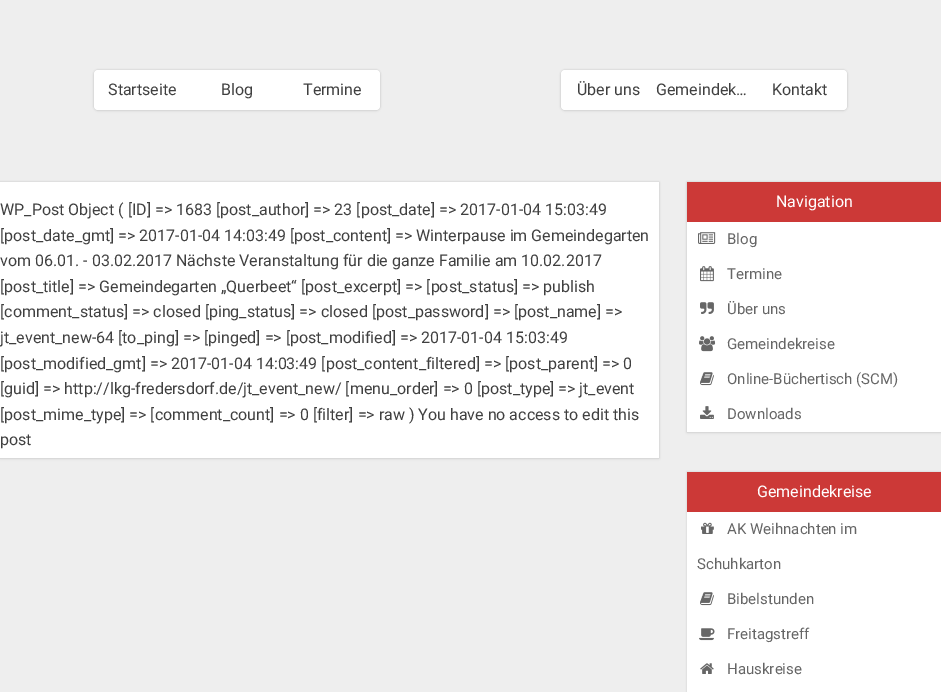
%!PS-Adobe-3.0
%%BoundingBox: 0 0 941 692
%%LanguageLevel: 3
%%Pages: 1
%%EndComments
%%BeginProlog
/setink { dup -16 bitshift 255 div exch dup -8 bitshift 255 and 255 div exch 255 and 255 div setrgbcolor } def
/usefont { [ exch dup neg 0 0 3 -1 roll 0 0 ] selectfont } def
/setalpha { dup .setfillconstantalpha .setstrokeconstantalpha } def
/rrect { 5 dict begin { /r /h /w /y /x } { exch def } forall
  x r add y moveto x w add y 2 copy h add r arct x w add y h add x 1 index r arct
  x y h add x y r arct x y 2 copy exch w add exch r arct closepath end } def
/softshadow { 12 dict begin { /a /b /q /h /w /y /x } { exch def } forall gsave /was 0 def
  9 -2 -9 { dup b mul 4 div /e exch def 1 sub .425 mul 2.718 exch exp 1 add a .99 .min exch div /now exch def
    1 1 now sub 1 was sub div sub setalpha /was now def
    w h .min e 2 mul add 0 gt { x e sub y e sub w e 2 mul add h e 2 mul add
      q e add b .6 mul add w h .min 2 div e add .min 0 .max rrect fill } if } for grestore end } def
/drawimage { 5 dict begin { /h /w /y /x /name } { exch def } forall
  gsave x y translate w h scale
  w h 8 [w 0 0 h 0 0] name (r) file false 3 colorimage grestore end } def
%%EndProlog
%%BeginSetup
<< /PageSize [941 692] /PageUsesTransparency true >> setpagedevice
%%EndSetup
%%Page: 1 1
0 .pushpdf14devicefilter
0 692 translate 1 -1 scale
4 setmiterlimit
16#EEEEEE setink
0 0 941 692 rectfill
16#000000 setink
94 70 286 40 4 1 0.15 softshadow
94 71 286 40 4 1.5 0.05 softshadow
16#FFFFFF setink
94 70 286 40 4 rrect fill
/Roboto-Regular 16 usefont
16#404040 setink
[
    [(Startseite) 108 95]
    [(Blog) 221 95]
    [(Termine) 303 95]
] { aload pop moveto show } forall
16#000000 setink
561 70 286 40 4 1 0.15 softshadow
561 71 286 40 4 1.5 0.05 softshadow
16#FFFFFF setink
561 70 286 40 4 rrect fill
16#404040 setink
[
    [(Über uns) 577 95]
    [(Gemeindek…) 656 95]
    [(Kontakt) 772 95]
] { aload pop moveto show } forall
16#000000 setink
0 182 659 276 0 1 0.15 softshadow
0 183 659 276 0 1.5 0.05 softshadow
16#FFFFFF setink
0 182 659 276 rectfill
16#404040 setink
[
    [(WP_Post Object \( [ID] => 1683 [post_author] => 23 [post_date] => 2017-01-04 15:03:49) 0 215]
    [([post_date_gmt] => 2017-01-04 14:03:49 [post_content] => Winterpause im Gemeindegarten) 0 241]
    [(vom 06.01. - 03.02.2017 Nächste Veranstaltung für die ganze Familie am 10.02.2017) 0 266]
    [([post_title] => Gemeindegarten „Querbeet“ [post_excerpt] => [post_status] => publish) 0 292]
    [([comment_status] => closed [ping_status] => closed [post_password] => [post_name] =>) 0 317]
    [(jt_event_new-64 [to_ping] => [pinged] => [post_modified] => 2017-01-04 15:03:49) 0 343]
    [([post_modified_gmt] => 2017-01-04 14:03:49 [post_content_filtered] => [post_parent] => 0) 0 369]
    [([guid] => http://lkg-fredersdorf.de/jt_event_new/ [menu_order] => 0 [post_type] => jt_event) 0 394]
    [([post_mime_type] => [comment_count] => 0 [filter] => raw \) You have no access to edit this) 0 420]
    [(post) 0 445]
] { aload pop moveto show } forall
16#000000 setink
687 182 254 250 0 1 0.15 softshadow
687 183 254 250 0 1.5 0.05 softshadow
16#FFFFFF setink
687 222 254 210 rectfill
16#CC3937 setink
687 182 254 40 rectfill
16#FFFFFF setink
776 207 moveto (Navigation) show
(img1.raw) 698 232 18 12 drawimage
/Roboto-Regular 15 usefont
16#666666 setink
727 244 moveto (Blog) show
(img2.raw) 700 266 14 16 drawimage
727 279 moveto (Termine) show
(img3.raw) 700 302 14 12 drawimage
727 314 moveto (Über uns) show
(img4.raw) 699 336 17 16 drawimage
727 349 moveto (Gemeindekreise) show
(img5.raw) 700 372 14 14 drawimage
727 384 moveto (Online-Büchertisch \(SCM\)) show
(img6.raw) 700 406 14 13 drawimage
727 419 moveto (Downloads) show
16#000000 setink
687 472 254 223 0 1 0.15 softshadow
16#FFFFFF setink
687 512 254 180 rectfill
16#CC3937 setink
687 472 254 40 rectfill
/Roboto-Regular 16 usefont
16#FFFFFF setink
757 497 moveto (Gemeindekreise) show
(img7.raw) 701 522 13 12 drawimage
/Roboto-Regular 15 usefont
16#666666 setink
727 534 moveto (AK Weihnachten im) show
697 569 moveto (Schuhkarton) show
(img5.raw) 700 592 14 14 drawimage
727 604 moveto (Bibelstunden) show
(img8.raw) 699 628 16 13 drawimage
727 639 moveto (Freitagstreff) show
(img9.raw) 700 663 14 11 drawimage
727 674 moveto (Hauskreise) show
.poppdf14devicefilter showpage
%%EOF
